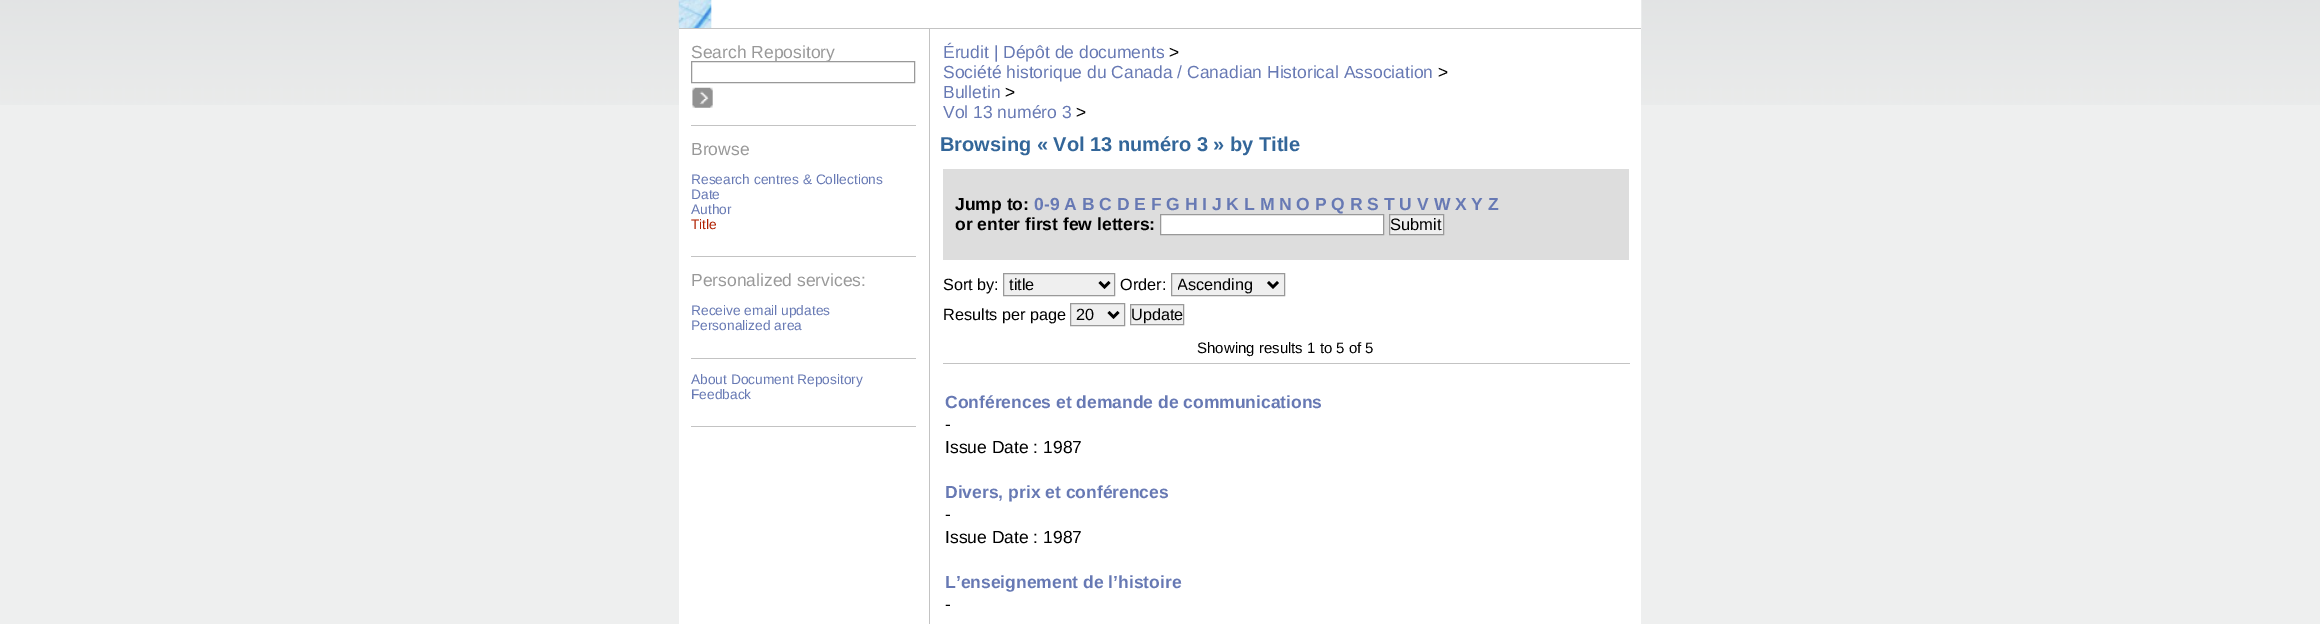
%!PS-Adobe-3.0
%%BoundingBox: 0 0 2320 624
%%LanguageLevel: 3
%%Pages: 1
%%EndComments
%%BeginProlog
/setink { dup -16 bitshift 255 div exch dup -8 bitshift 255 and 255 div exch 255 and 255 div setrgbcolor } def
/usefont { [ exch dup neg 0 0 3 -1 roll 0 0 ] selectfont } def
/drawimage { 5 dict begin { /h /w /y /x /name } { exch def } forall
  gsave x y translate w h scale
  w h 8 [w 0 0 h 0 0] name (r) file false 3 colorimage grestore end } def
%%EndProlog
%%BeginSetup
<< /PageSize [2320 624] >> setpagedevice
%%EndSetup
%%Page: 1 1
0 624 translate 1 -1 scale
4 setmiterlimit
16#EEEFEF setink
0 0 2320 624 rectfill
(img1.raw) 0 0 2320 105 drawimage
(img2.raw) 678 0 964 29 drawimage
16#C3C3C3 setink
679 28 962 1 rectfill
16#FFFFFF setink
679 29 962 595 rectfill
/LiberationSans-Regular 17.5 usefont
16#999999 setink
691 58 moveto (Search Repository) show
691.5 61.5 223 21 rectstroke
(img3.raw) 692 87 21 21 drawimage
16#C3C3C3 setink
691 125 225 1 rectfill
691 256 225 1 rectfill
16#999999 setink
691 155 moveto (Browse) show
/LiberationSans-Regular 13.75 usefont
16#6779B4 setink
[
    [(Research centres & Collections) 691 184]
    [(Date) 691 199]
    [(Author) 691 214]
] { aload pop moveto show } forall
16#B02000 setink
691 229 moveto (Title) show
16#C3C3C3 setink
691 358 225 1 rectfill
/LiberationSans-Regular 17.5 usefont
16#999999 setink
691 286 moveto (Personalized services:) show
/LiberationSans-Regular 13.75 usefont
16#6779B4 setink
691 315 moveto (Receive email updates) show
691 330 moveto (Personalized area) show
16#C3C3C3 setink
691 426 225 1 rectfill
16#6779B4 setink
691 384 moveto (About Document Repository) show
691 399 moveto (Feedback) show
16#C3C3C3 setink
929 29 1 595 rectfill
/LiberationSans-Regular 17.5 usefont
16#6779B4 setink
943 58 moveto (Érudit | Dépôt de documents) show
16#000000 setink
1169 58 moveto (>) show
16#6779B4 setink
943 78 moveto (Société historique du Canada / Canadian Historical Association) show
16#000000 setink
1438 78 moveto (>) show
16#6779B4 setink
943 98 moveto (Bulletin) show
16#000000 setink
1005 98 moveto (>) show
16#6779B4 setink
943 118 moveto (Vol 13 numéro 3) show
16#000000 setink
1076 118 moveto (>) show
/LiberationSans-Bold 20 usefont
16#336699 setink
940 151 moveto (Browsing « Vol 13 numéro 3 » by Title) show
16#DDDDDD setink
943 169 686 91 rectfill
/LiberationSans-Bold 17.5 usefont
16#000000 setink
955 210 moveto (Jump to:) show
16#6779B4 setink
1034 210 moveto (0-9 A B C D E F G H I J K L M N O P Q R S T U V W X Y Z) show
16#000000 setink
955 230 moveto (or enter first few letters:) show
16#FFFFFF setink
1160.5 214.5 moveto 1383.5 214.5 lineto 1383.5 234.5 lineto 1160.5 234.5 lineto closepath gsave fill grestore
16#999999 setink
stroke
16#EFEFEF setink
1389.5 214.5 moveto 1443.5 214.5 lineto 1443.5 234.5 lineto 1389.5 234.5 lineto closepath gsave fill grestore
16#999999 setink
stroke
/LiberationSans-Regular 16.5 usefont
16#000000 setink
1390 230 moveto (Submit) show
/LiberationSans-Regular 16.25 usefont
943 290 moveto (Sort by:) show
16#EFEFEF setink
1003.5 273.5 moveto 1114.5 273.5 lineto 1114.5 295.5 lineto 1003.5 295.5 lineto closepath gsave fill grestore
16#999999 setink
stroke
16#000000 setink
2.5 setlinewidth
1099.5 282 moveto 1104.5 287 lineto 1109.5 282 lineto stroke
1009 290 moveto (title) show
1120 290 moveto (Order:) show
16#EFEFEF setink
1171.5 273.5 moveto 1284.5 273.5 lineto 1284.5 295.5 lineto 1171.5 295.5 lineto closepath gsave fill grestore
16#999999 setink
1 setlinewidth
stroke
16#000000 setink
2.5 setlinewidth
1268 282 moveto 1273 287 lineto 1278 282 lineto stroke
gsave
1178 274 86 21 rectclip
1177 290 moveto (Ascending) show
grestore
943 320 moveto (Results per page) show
16#EFEFEF setink
1070.5 303.5 moveto 1124.5 303.5 lineto 1124.5 325.5 lineto 1070.5 325.5 lineto closepath gsave fill grestore
16#999999 setink
1 setlinewidth
stroke
16#000000 setink
2.5 setlinewidth
1108.5 312 moveto 1113.5 317 lineto 1118.5 312 lineto stroke
1076 320 moveto (20) show
16#EFEFEF setink
1130.5 304.5 moveto 1183.5 304.5 lineto 1183.5 324.5 lineto 1130.5 324.5 lineto closepath gsave fill grestore
16#999999 setink
1 setlinewidth
stroke
16#000000 setink
1131 320 moveto (Update) show
/LiberationSans-Regular 15 usefont
1197 353 moveto (Showing results 1 to 5 of 5) show
16#C3C3C3 setink
943 363 687 1 rectfill
/LiberationSans-Bold 17.5 usefont
16#6779B4 setink
945 408 moveto (Conférences et demande de communications) show
/LiberationSans-Regular 17.5 usefont
16#000000 setink
945 430 moveto (-) show
945 453 moveto (Issue Date : 1987) show
/LiberationSans-Bold 17.5 usefont
16#6779B4 setink
945 498 moveto (Divers, prix et conférences) show
/LiberationSans-Regular 17.5 usefont
16#000000 setink
945 520 moveto (-) show
945 543 moveto (Issue Date : 1987) show
/LiberationSans-Bold 17.5 usefont
16#6779B4 setink
945 588 moveto (L’enseignement de l’histoire) show
/LiberationSans-Regular 17.5 usefont
16#000000 setink
945 610 moveto (-) show
showpage
%%EOF
